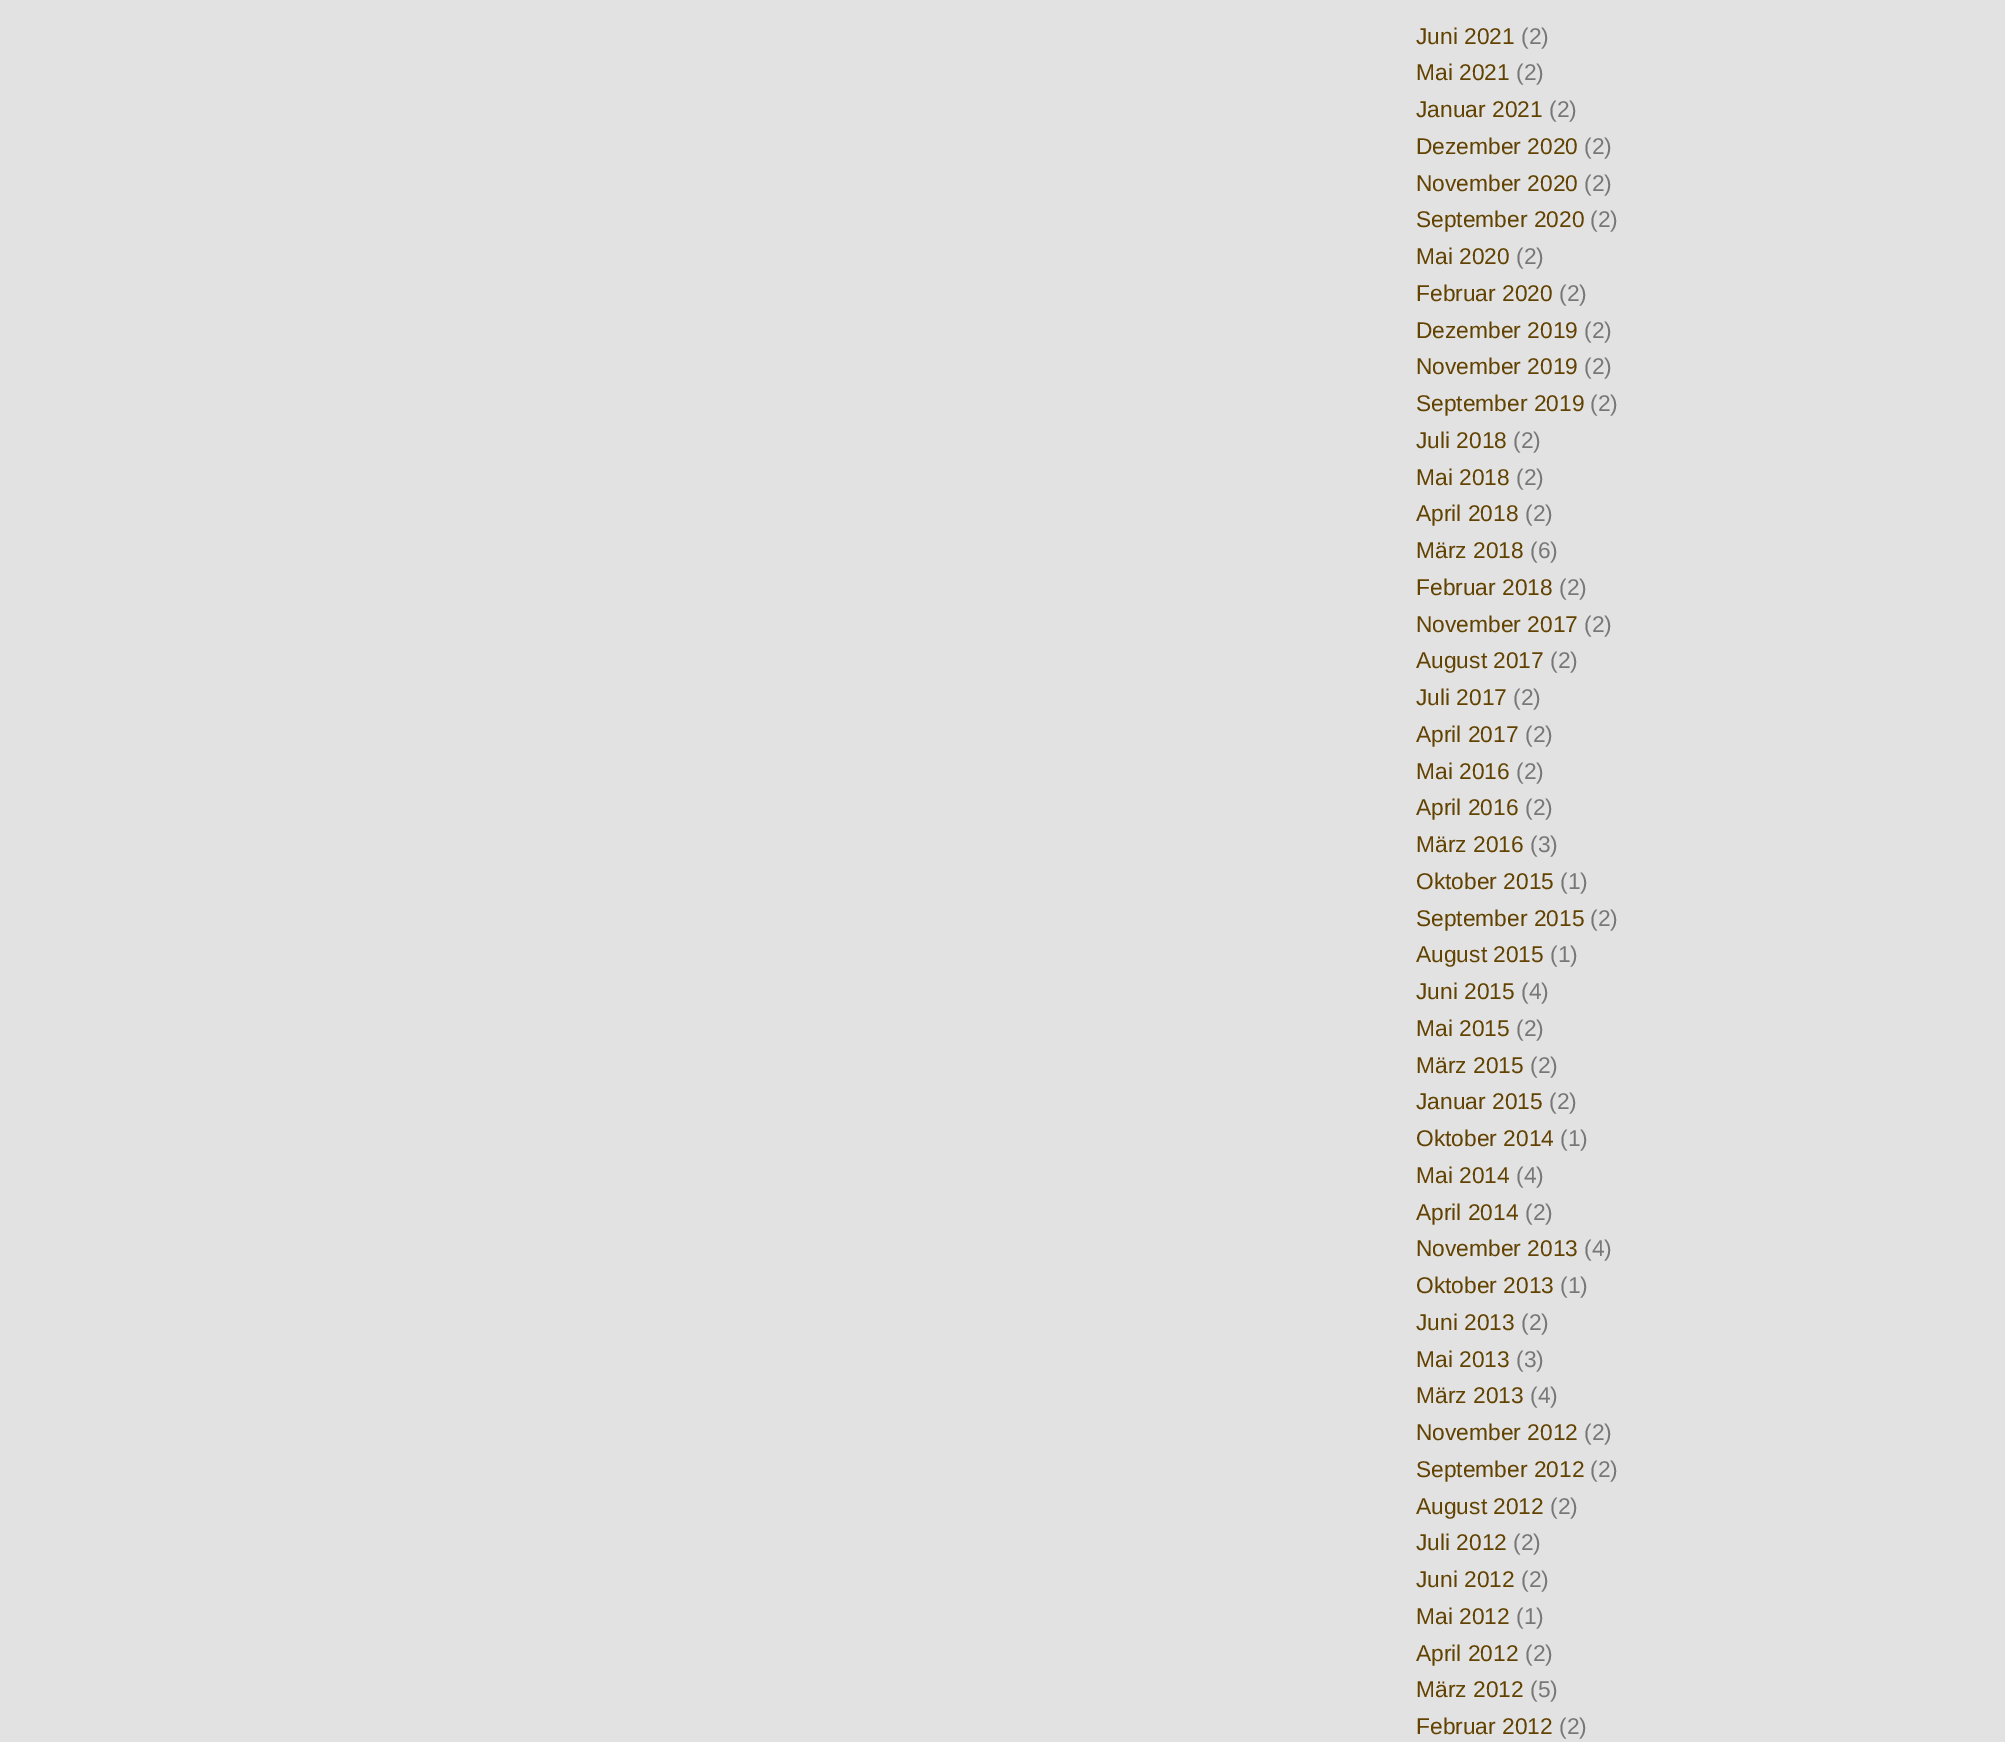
%!PS-Adobe-3.0
%%BoundingBox: 0 0 2005 1742
%%LanguageLevel: 3
%%Pages: 1
%%EndComments
%%BeginProlog
/setink { dup -16 bitshift 255 div exch dup -8 bitshift 255 and 255 div exch 255 and 255 div setrgbcolor } def
/usefont { [ exch dup neg 0 0 3 -1 roll 0 0 ] selectfont } def
%%EndProlog
%%BeginSetup
<< /PageSize [2005 1742] >> setpagedevice
%%EndSetup
%%Page: 1 1
0 1742 translate 1 -1 scale
4 setmiterlimit
16#E2E2E2 setink
0 0 2005 1742 rectfill
/LiberationSans-Regular 22.75 usefont
16#624200 setink
1416 44 moveto (Juni 2021) show
16#777777 setink
1521 44 moveto (\(2\)) show
16#624200 setink
1416 80 moveto (Mai 2021) show
16#777777 setink
1516 80 moveto (\(2\)) show
16#624200 setink
1416 117 moveto (Januar 2021) show
16#777777 setink
1549 117 moveto (\(2\)) show
16#624200 setink
1416 154 moveto (Dezember 2020) show
16#777777 setink
1584 154 moveto (\(2\)) show
16#624200 setink
1416 191 moveto (November 2020) show
16#777777 setink
1584 191 moveto (\(2\)) show
16#624200 setink
1416 227 moveto (September 2020) show
16#777777 setink
1590 227 moveto (\(2\)) show
16#624200 setink
1416 264 moveto (Mai 2020) show
16#777777 setink
1516 264 moveto (\(2\)) show
16#624200 setink
1416 301 moveto (Februar 2020) show
16#777777 setink
1559 301 moveto (\(2\)) show
16#624200 setink
1416 338 moveto (Dezember 2019) show
16#777777 setink
1584 338 moveto (\(2\)) show
16#624200 setink
1416 374 moveto (November 2019) show
16#777777 setink
1584 374 moveto (\(2\)) show
16#624200 setink
1416 411 moveto (September 2019) show
16#777777 setink
1590 411 moveto (\(2\)) show
16#624200 setink
1416 448 moveto (Juli 2018) show
16#777777 setink
1513 448 moveto (\(2\)) show
16#624200 setink
1416 485 moveto (Mai 2018) show
16#777777 setink
1516 485 moveto (\(2\)) show
16#624200 setink
1416 521 moveto (April 2018) show
16#777777 setink
1525 521 moveto (\(2\)) show
16#624200 setink
1416 558 moveto (März 2018) show
16#777777 setink
1530 558 moveto (\(6\)) show
16#624200 setink
1416 595 moveto (Februar 2018) show
16#777777 setink
1559 595 moveto (\(2\)) show
16#624200 setink
1416 632 moveto (November 2017) show
16#777777 setink
1584 632 moveto (\(2\)) show
16#624200 setink
1416 668 moveto (August 2017) show
16#777777 setink
1550 668 moveto (\(2\)) show
16#624200 setink
1416 705 moveto (Juli 2017) show
16#777777 setink
1513 705 moveto (\(2\)) show
16#624200 setink
1416 742 moveto (April 2017) show
16#777777 setink
1525 742 moveto (\(2\)) show
16#624200 setink
1416 779 moveto (Mai 2016) show
16#777777 setink
1516 779 moveto (\(2\)) show
16#624200 setink
1416 815 moveto (April 2016) show
16#777777 setink
1525 815 moveto (\(2\)) show
16#624200 setink
1416 852 moveto (März 2016) show
16#777777 setink
1530 852 moveto (\(3\)) show
16#624200 setink
1416 889 moveto (Oktober 2015) show
16#777777 setink
1560 889 moveto (\(1\)) show
16#624200 setink
1416 926 moveto (September 2015) show
16#777777 setink
1590 926 moveto (\(2\)) show
16#624200 setink
1416 962 moveto (August 2015) show
16#777777 setink
1550 962 moveto (\(1\)) show
16#624200 setink
1416 999 moveto (Juni 2015) show
16#777777 setink
1521 999 moveto (\(4\)) show
16#624200 setink
1416 1036 moveto (Mai 2015) show
16#777777 setink
1516 1036 moveto (\(2\)) show
16#624200 setink
1416 1073 moveto (März 2015) show
16#777777 setink
1530 1073 moveto (\(2\)) show
16#624200 setink
1416 1109 moveto (Januar 2015) show
16#777777 setink
1549 1109 moveto (\(2\)) show
16#624200 setink
1416 1146 moveto (Oktober 2014) show
16#777777 setink
1560 1146 moveto (\(1\)) show
16#624200 setink
1416 1183 moveto (Mai 2014) show
16#777777 setink
1516 1183 moveto (\(4\)) show
16#624200 setink
1416 1220 moveto (April 2014) show
16#777777 setink
1525 1220 moveto (\(2\)) show
16#624200 setink
1416 1256 moveto (November 2013) show
16#777777 setink
1584 1256 moveto (\(4\)) show
16#624200 setink
1416 1293 moveto (Oktober 2013) show
16#777777 setink
1560 1293 moveto (\(1\)) show
16#624200 setink
1416 1330 moveto (Juni 2013) show
16#777777 setink
1521 1330 moveto (\(2\)) show
16#624200 setink
1416 1367 moveto (Mai 2013) show
16#777777 setink
1516 1367 moveto (\(3\)) show
16#624200 setink
1416 1403 moveto (März 2013) show
16#777777 setink
1530 1403 moveto (\(4\)) show
16#624200 setink
1416 1440 moveto (November 2012) show
16#777777 setink
1584 1440 moveto (\(2\)) show
16#624200 setink
1416 1477 moveto (September 2012) show
16#777777 setink
1590 1477 moveto (\(2\)) show
16#624200 setink
1416 1514 moveto (August 2012) show
16#777777 setink
1550 1514 moveto (\(2\)) show
16#624200 setink
1416 1550 moveto (Juli 2012) show
16#777777 setink
1513 1550 moveto (\(2\)) show
16#624200 setink
1416 1587 moveto (Juni 2012) show
16#777777 setink
1521 1587 moveto (\(2\)) show
16#624200 setink
1416 1624 moveto (Mai 2012) show
16#777777 setink
1516 1624 moveto (\(1\)) show
16#624200 setink
1416 1661 moveto (April 2012) show
16#777777 setink
1525 1661 moveto (\(2\)) show
16#624200 setink
1416 1697 moveto (März 2012) show
16#777777 setink
1530 1697 moveto (\(5\)) show
16#624200 setink
1416 1734 moveto (Februar 2012) show
16#777777 setink
1559 1734 moveto (\(2\)) show
showpage
%%EOF
